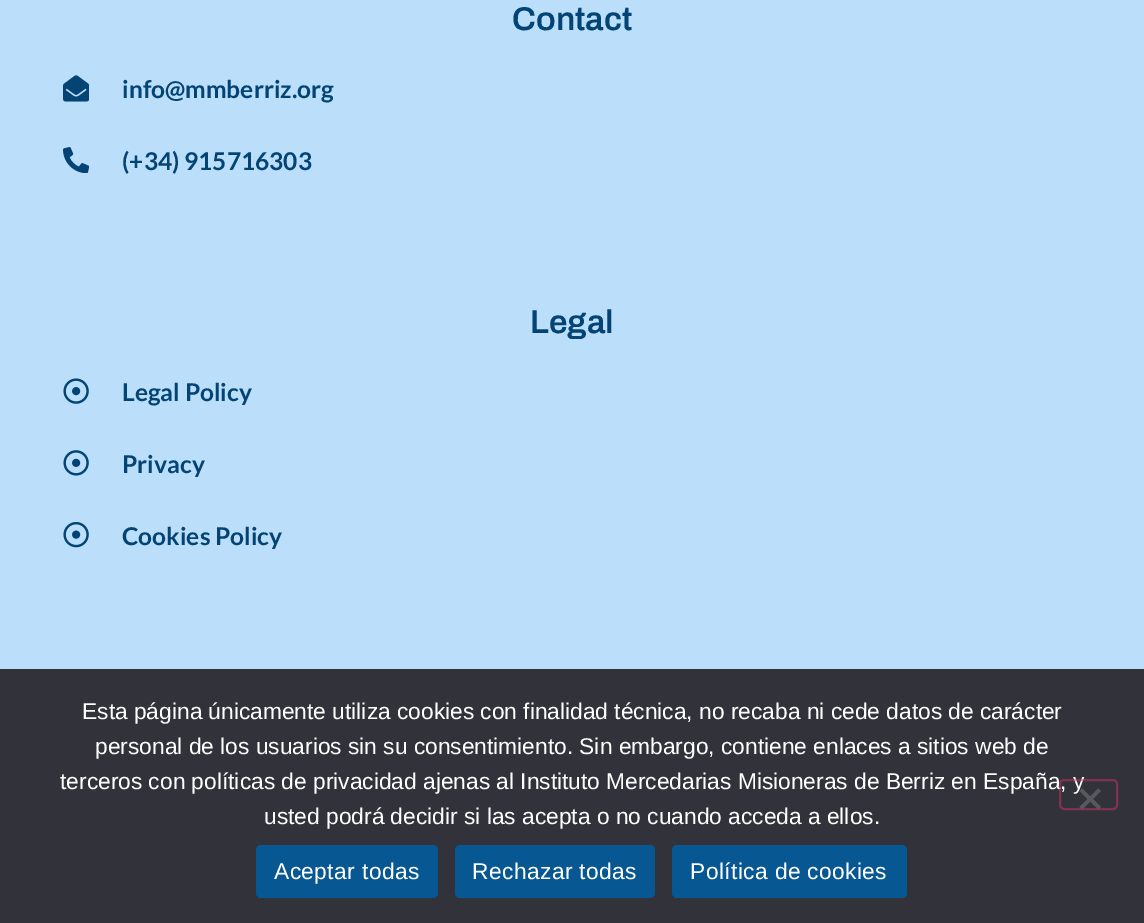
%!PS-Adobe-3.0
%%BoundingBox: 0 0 1144 923
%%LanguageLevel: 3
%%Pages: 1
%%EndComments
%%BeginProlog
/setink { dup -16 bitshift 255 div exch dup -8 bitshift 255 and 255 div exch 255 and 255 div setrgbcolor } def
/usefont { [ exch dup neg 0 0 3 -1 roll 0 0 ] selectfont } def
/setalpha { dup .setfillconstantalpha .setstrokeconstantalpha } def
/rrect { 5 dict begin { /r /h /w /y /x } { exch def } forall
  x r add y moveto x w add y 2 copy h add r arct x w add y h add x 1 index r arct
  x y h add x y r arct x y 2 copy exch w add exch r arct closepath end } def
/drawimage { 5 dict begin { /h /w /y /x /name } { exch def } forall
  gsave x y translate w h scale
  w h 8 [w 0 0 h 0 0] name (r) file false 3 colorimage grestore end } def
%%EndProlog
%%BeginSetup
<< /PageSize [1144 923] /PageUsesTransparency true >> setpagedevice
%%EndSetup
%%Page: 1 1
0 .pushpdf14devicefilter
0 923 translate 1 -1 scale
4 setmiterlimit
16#BBDEFB setink
0 0 1144 923 rectfill
/Archivo-SemiBold 33 usefont
16#034474 setink
512 30 moveto (Contact) show
(img1.raw) 63 75 26 27 drawimage
/Lato-Bold 24.5 usefont
122 98 moveto (info@mmberriz.org) show
(img2.raw) 63 147 26 26 drawimage
122 170 moveto (\(+34\) 915716303) show
/Archivo-SemiBold 33 usefont
530 333 moveto (Legal) show
(img3.raw) 63 378 26 26 drawimage
/Lato-Bold 24.5 usefont
122 401 moveto (Legal Policy) show
(img4.raw) 63 450 26 26 drawimage
122 473 moveto (Privacy) show
(img5.raw) 63 522 26 26 drawimage
122 545 moveto (Cookies Policy) show
16#32323A setink
0 669 1144 254 rectfill
/LiberationSans-Regular 22.75 usefont
16#FFFFFF setink
[
    [(Esta página únicamente utiliza cookies con finalidad técnica, no recaba ni cede datos de carácter) 82 719]
    [(personal de los usuarios sin su consentimiento. Sin embargo, contiene enlaces a sitios web de) 95 754]
    [(terceros con políticas de privacidad ajenas al Instituto Mercedarias Misioneras de Berriz en España, y) 60 789]
    [(usted podrá decidir si las acepta o no cuando acceda a ellos.) 264 824]
] { aload pop moveto show } forall
0.5 setalpha
16#CC3366 setink
2 setlinewidth
1060 780 57 29 4 rrect stroke
1 setalpha
16#59595D setink
1098.5 788.5 moveto 1101 791 lineto 1082 809.5 lineto 1079.5 807 lineto closepath fill
1079.5 791 moveto 1082 788.5 lineto 1101 807 lineto 1098.5 809.5 lineto closepath fill
16#075793 setink
256 845 182 53 5 rrect fill
16#FFFFFF setink
274 879 moveto 0.4 0 (Aceptar todas) ashow
16#075793 setink
455 845 200 53 5 rrect fill
16#FFFFFF setink
472 879 moveto 0.4 0 (Rechazar todas) ashow
16#075793 setink
672 845 235 53 5 rrect fill
16#FFFFFF setink
690 879 moveto 0.4 0 (Política de cookies) ashow
.poppdf14devicefilter showpage
%%EOF
